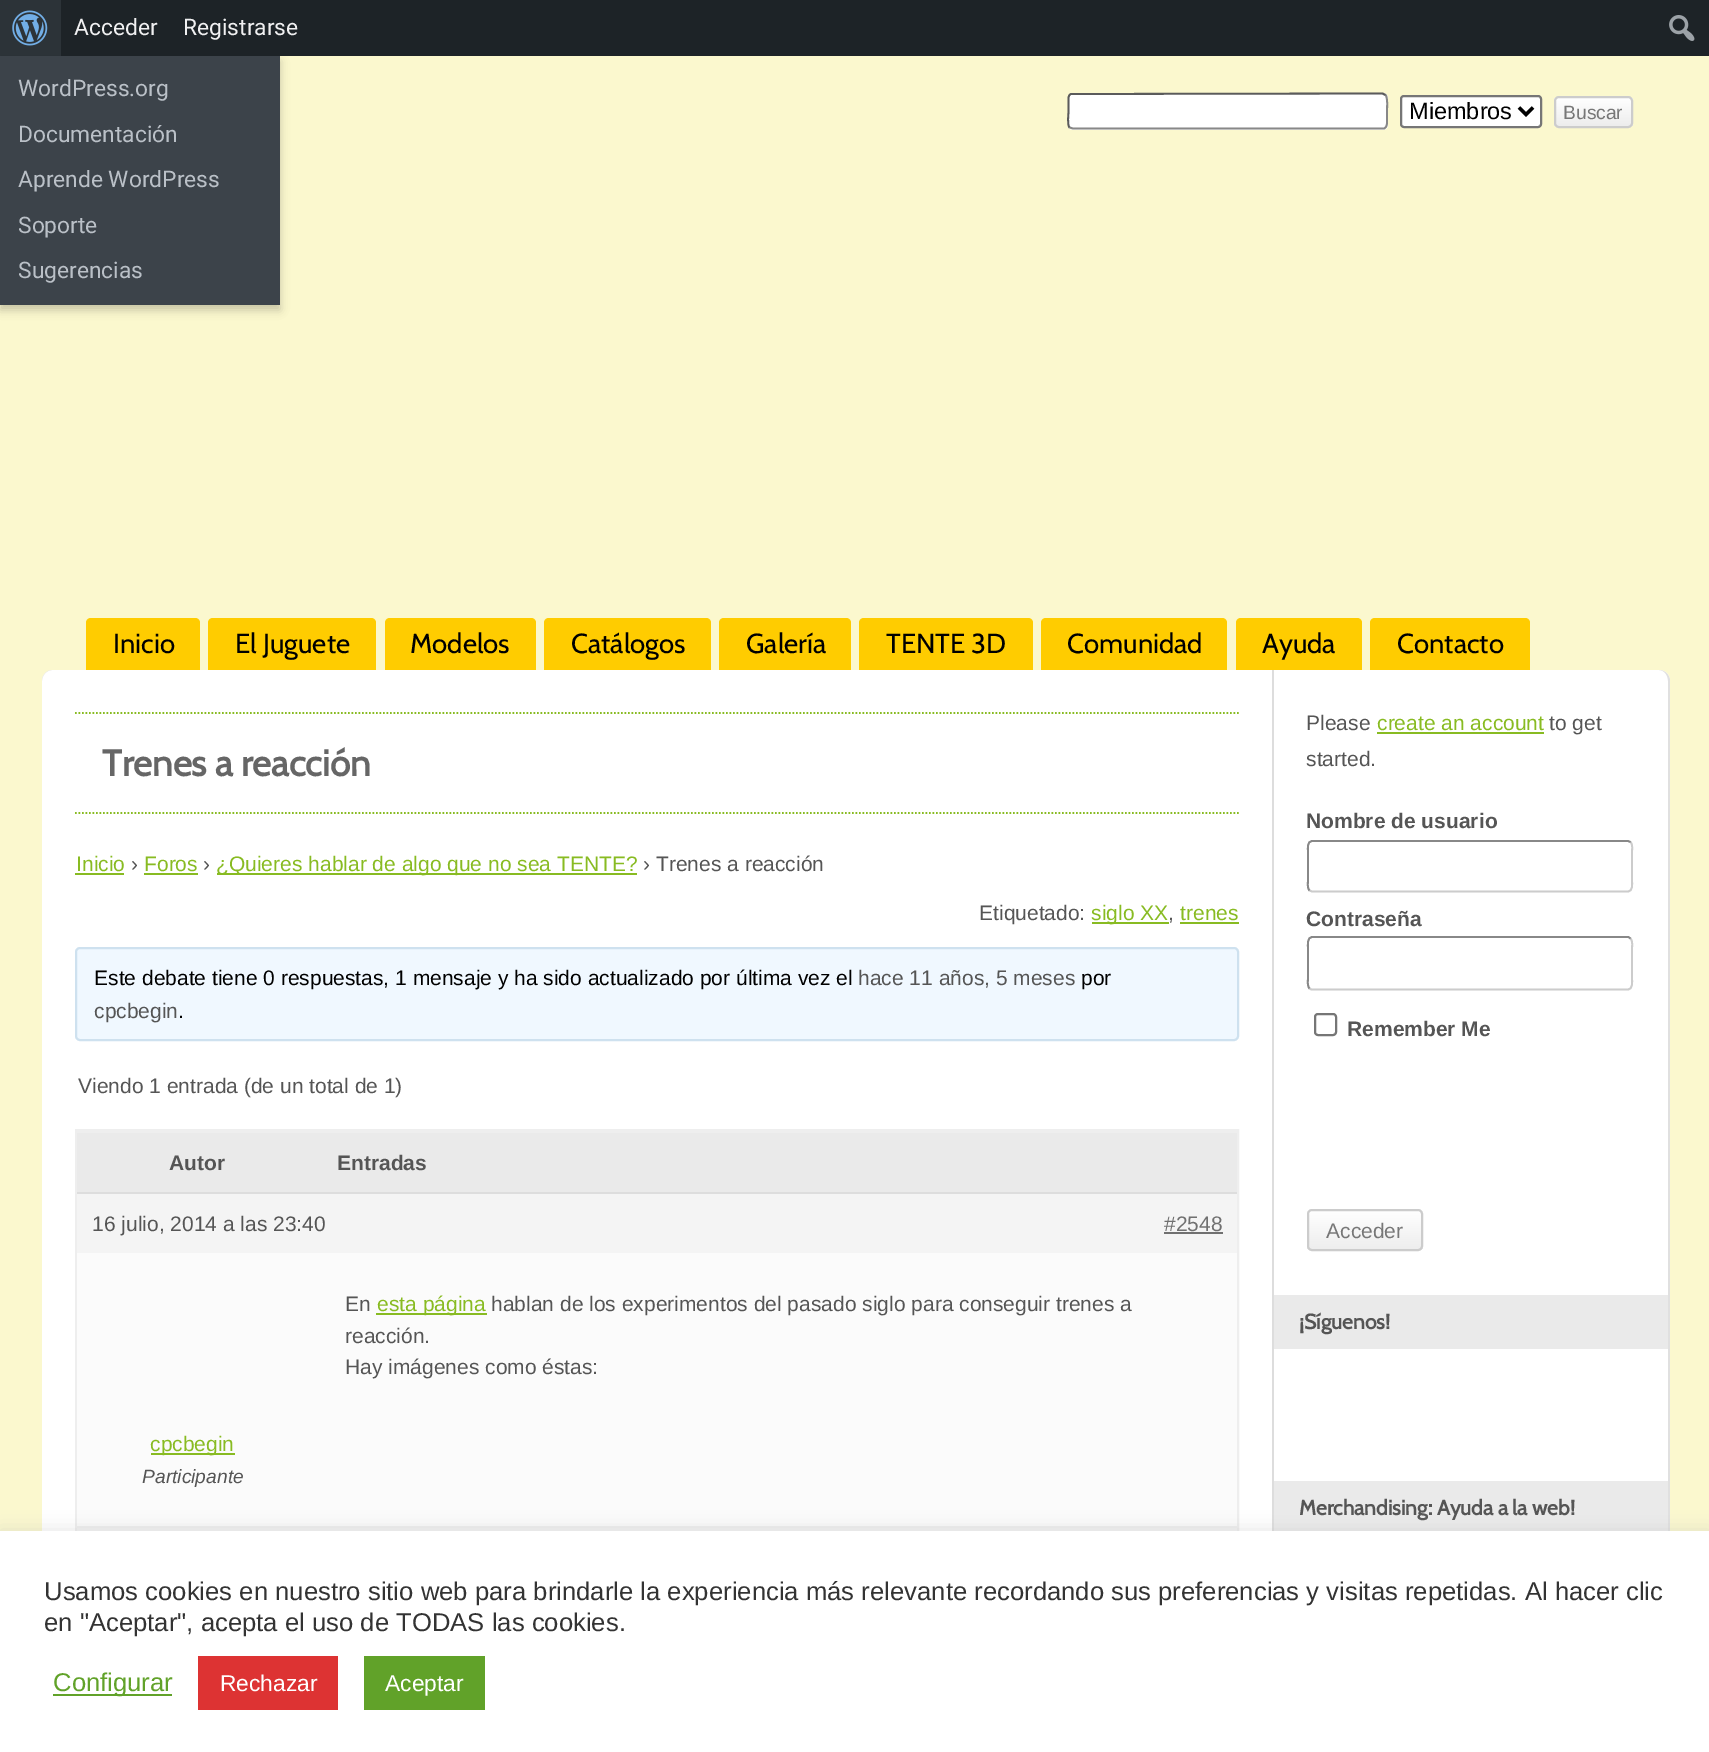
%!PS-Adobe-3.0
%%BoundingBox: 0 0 1709 1752
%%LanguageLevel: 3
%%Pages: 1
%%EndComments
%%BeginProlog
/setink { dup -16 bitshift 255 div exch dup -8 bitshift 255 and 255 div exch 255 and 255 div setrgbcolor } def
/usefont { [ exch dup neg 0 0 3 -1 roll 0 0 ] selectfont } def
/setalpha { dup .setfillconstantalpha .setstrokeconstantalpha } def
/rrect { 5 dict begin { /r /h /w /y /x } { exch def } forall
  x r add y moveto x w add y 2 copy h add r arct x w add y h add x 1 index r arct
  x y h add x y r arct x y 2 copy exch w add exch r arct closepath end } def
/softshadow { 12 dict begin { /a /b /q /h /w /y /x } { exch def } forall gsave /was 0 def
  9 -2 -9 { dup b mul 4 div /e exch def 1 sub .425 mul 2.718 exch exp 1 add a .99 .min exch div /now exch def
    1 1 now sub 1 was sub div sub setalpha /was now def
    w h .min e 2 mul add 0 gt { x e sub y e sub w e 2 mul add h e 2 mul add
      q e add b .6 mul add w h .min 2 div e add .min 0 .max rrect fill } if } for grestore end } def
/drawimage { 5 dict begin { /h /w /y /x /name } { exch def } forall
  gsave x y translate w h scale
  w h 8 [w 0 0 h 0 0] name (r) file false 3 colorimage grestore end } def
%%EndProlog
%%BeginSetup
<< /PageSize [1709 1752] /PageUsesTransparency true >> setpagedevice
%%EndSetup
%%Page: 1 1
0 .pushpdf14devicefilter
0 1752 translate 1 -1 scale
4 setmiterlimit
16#FBF8CE setink
0 0 1709 1752 rectfill
16#1D2327 setink
61 0 1648 56 rectfill
/Roboto-Regular 22.75 usefont
16#F0F0F1 setink
74 35 moveto (Acceder) show
183 35 moveto (Registrarse) show
16#2C3338 setink
0 0 61 56 rectfill
(img1.raw) 12 10 36 36 drawimage
16#000000 setink
0 61 280 249 0 4.5 0.2 softshadow
16#3C434A setink
0 56 280 249 rectfill
16#BAC0C7 setink
[
    [(WordPress.org) 18 96]
    [(Documentación) 18 142]
    [(Aprende WordPress) 18 187]
    [(Soporte) 18 233]
    [(Sugerencias) 18 278]
] { aload pop moveto show } forall
(img2.raw) 1669 15 26 26 drawimage
16#FFFFFF setink
1068 93 320 37 5 rrect fill
16#888888 setink
1.8 setlinewidth
1385.5 95 moveto 1388 97.5 1387 108 1387 111 curveto 1387 120 lineto 1387 123 1387.5 127 1384 128.5 curveto 1073 128.5 lineto 1069.5 127.5 lineto stroke
16#5B5B5B setink
1069.5 127.5 moveto 1067 124.5 1068.5 114.5 1068.5 111 curveto 1068.5 102.5 lineto 1068.5 99.5 1067.5 95.5 1071 94 curveto 1382.5 93.5 lineto 1385.5 95 lineto stroke
16#FFFFFF setink
1401 96 140 31 3 rrect gsave fill grestore
16#767676 setink
2 setlinewidth
stroke
16#000000 setink
3.5 setlinewidth
1519 107.5 moveto 1526 114.5 lineto 1533 107.5 lineto stroke
/LiberationSans-Regular 23.5 usefont
1409 119 moveto (Miembros) show
gsave
1554 96 79 32 5 rrect clip newpath
gsave 1554 98 moveto 1633 98 lineto 1633 126 lineto 1554 126 lineto closepath clip newpath
<< /ShadingType 2 /ColorSpace /DeviceRGB /Coords [1593 98 1593 126] /Extend [true true] /Function << /FunctionType 2 /Domain [0 1] /C0 [1 1 1] /C1 [0.929 0.929 0.929] /N 1 >> >> shfill grestore
grestore
16#CCCCCC setink
2 setlinewidth
1555 97 77 30 4 rrect stroke
/LiberationSans-Regular 19.25 usefont
16#777777 setink
1563 119 moveto (Buscar) show
16#FFCC00 setink
91 618 moveto 195 618 lineto 198 618 200 620 200 623 curveto 200 670 lineto 86 670 lineto 86 623 lineto 86 620 88 618 91 618 curveto closepath fill
/Cabin-Regular 27.5 usefont
16#000000 setink
113 653 moveto (Inicio) show
16#FFCC00 setink
213 618 moveto 371 618 lineto 374 618 376 620 376 623 curveto 376 670 lineto 208 670 lineto 208 623 lineto 208 620 210 618 213 618 curveto closepath fill
16#000000 setink
235 653 moveto (El Juguete) show
16#FFCC00 setink
390 618 moveto 531 618 lineto 534 618 536 620 536 623 curveto 536 670 lineto 385 670 lineto 385 623 lineto 385 620 387 618 390 618 curveto closepath fill
16#000000 setink
410 653 moveto (Modelos) show
16#FFCC00 setink
549 618 moveto 706 618 lineto 709 618 711 620 711 623 curveto 711 670 lineto 544 670 lineto 544 623 lineto 544 620 546 618 549 618 curveto closepath fill
16#000000 setink
571 653 moveto (Catálogos) show
16#FFCC00 setink
724 618 moveto 846 618 lineto 849 618 851 620 851 623 curveto 851 670 lineto 719 670 lineto 719 623 lineto 719 620 721 618 724 618 curveto closepath fill
16#000000 setink
746 653 moveto (Galería) show
16#FFCC00 setink
864 618 moveto 1028 618 lineto 1031 618 1033 620 1033 623 curveto 1033 670 lineto 859 670 lineto 859 623 lineto 859 620 861 618 864 618 curveto closepath fill
16#000000 setink
886 653 moveto (TENTE 3D) show
16#FFCC00 setink
1046 618 moveto 1222 618 lineto 1225 618 1227 620 1227 623 curveto 1227 670 lineto 1041 670 lineto 1041 623 lineto 1041 620 1043 618 1046 618 curveto closepath fill
16#000000 setink
1067 653 moveto (Comunidad) show
16#FFCC00 setink
1241 618 moveto 1357 618 lineto 1360 618 1362 620 1362 623 curveto 1362 670 lineto 1236 670 lineto 1236 623 lineto 1236 620 1238 618 1241 618 curveto closepath fill
16#000000 setink
1262 653 moveto (Ayuda) show
16#FFCC00 setink
1375 618 moveto 1525 618 lineto 1528 618 1530 620 1530 623 curveto 1530 670 lineto 1370 670 lineto 1370 623 lineto 1370 620 1372 618 1375 618 curveto closepath fill
16#000000 setink
1397 653 moveto (Contacto) show
16#FFFFFF setink
42 670 1628 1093 11 rrect fill
16#E0E0E0 setink
52 670 moveto 1659 670 lineto 1665 670 1670 675 1670 681 curveto 1670 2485 lineto 1670 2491 1665 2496 1659 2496 curveto 52 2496 lineto 47 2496 42 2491 42 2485 curveto 42 681 lineto 42 675 47 670 52 670 curveto closepath 52 670 moveto 1659 670 lineto 1664 670 1668 675 1668 681 curveto 1668 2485 lineto 1668 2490 1664 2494 1659 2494 curveto 52 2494 lineto 47 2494 42 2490 42 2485 curveto 42 681 lineto 42 675 47 670 52 670 curveto closepath eofill
16#DDDDDD setink
1272 670 2 861 rectfill
16#88BB22 setink
1.8 setlinewidth
[1.75 1.75] 0 setdash
75 713 moveto 1239 713 lineto stroke
75 813 moveto 1239 813 lineto stroke
/Cabin-Bold 36.75 usefont
16#666666 setink
102 776 moveto (Trenes a reacción) show
/LiberationSans-Regular 21 usefont
16#88BB22 setink
76 871 moveto (Inicio) show
75 873 49 2 rectfill
16#555555 setink
131 871 moveto (›) show
16#88BB22 setink
144 871 moveto (Foros) show
144 873 54 2 rectfill
16#555555 setink
203 871 moveto (›) show
16#88BB22 setink
217 873 420 2 rectfill
216 871 moveto (¿Quieres hablar de algo que no sea TENTE?) show
16#555555 setink
643 871 moveto (› Trenes a reacción) show
979 920 moveto (Etiquetado:) show
16#88BB22 setink
1092 922 77 2 rectfill
1091 920 moveto (siglo XX) show
16#555555 setink
1168 920 moveto (,) show
16#88BB22 setink
1180 920 moveto (trenes) show
1180 922 59 2 rectfill
16#F0F8FF setink
76 948 1162 92 4 rrect gsave fill grestore
16#CEE1EF setink
2 setlinewidth
[] 0 setdash
stroke
16#000000 setink
94 985 moveto (Este debate tiene 0 respuestas, 1 mensaje y ha sido actualizado por última vez el) show
16#555555 setink
858 985 moveto (hace 11 años, 5 meses) show
16#000000 setink
1081 985 moveto (por) show
16#555555 setink
94 1018 moveto (cpcbegin) show
16#000000 setink
178 1018 moveto (.) show
16#555555 setink
78 1093 moveto (Viendo 1 entrada \(de un total de 1\)) show
16#EEEEEE setink
76 1130 1162 458 rectstroke
16#EAEAEA setink
77 1133 1160 59 rectfill
16#EEEEEE setink
77 1131 1160 2 rectfill
/LiberationSans-Bold 21 usefont
16#555555 setink
169 1170 moveto (Autor) show
337 1170 moveto (Entradas) show
16#F4F4F4 setink
77 1194 1160 59 rectfill
16#DDDDDD setink
77 1192 1160 2 rectfill
/LiberationSans-Regular 21 usefont
16#555555 setink
92 1231 moveto (16 julio, 2014 a las 23:40) show
16#707070 setink
1164 1231 moveto (#2548) show
1164 1232 59 2 rectfill
16#FBFBFB setink
77 1253 1160 273 rectfill
16#555555 setink
345 1311 moveto (En) show
16#88BB22 setink
376 1313 111 2 rectfill
377 1311 moveto (esta página) show
16#555555 setink
[
    [(hablan de los experimentos del pasado siglo para conseguir trenes a) 491 1311]
    [(reacción.) 345 1343]
    [(Hay imágenes como éstas:) 345 1374]
] { aload pop moveto show } forall
16#88BB22 setink
151 1453 84 2 rectfill
150 1451 moveto (cpcbegin) show
/LiberationSans-Italic 19.25 usefont
16#555555 setink
142 1483 moveto (Participante) show
16#F3F3F3 setink
77 1528 1160 3 rectfill
16#EEEEEE setink
77 1526 1160 2 rectfill
/LiberationSans-Regular 21 usefont
16#555555 setink
1306 730 moveto (Please) show
16#88BB22 setink
1377 730 moveto (create an account) show
1377 732 167 2 rectfill
16#555555 setink
1549 730 moveto (to get) show
1306 766 moveto (started.) show
/LiberationSans-Bold 21 usefont
1306 828 moveto (Nombre de usuario) show
16#CCCCCC setink
1.8 setlinewidth
1630.5 842 moveto 1633 844.5 1632 850 1632 852 curveto 1632 880 lineto 1632 883.5 1633.5 891.5 1627.5 891.5 curveto 1312 891.5 lineto 1309.5 890.5 lineto stroke
16#888888 setink
1309.5 890.5 moveto 1307 888 1308 882.5 1308 880 curveto 1308 852 lineto 1308 849 1306.5 841 1312.5 841 curveto 1628 841 lineto 1630.5 842 lineto stroke
16#555555 setink
1306 926 moveto (Contraseña) show
16#CCCCCC setink
1630.5 938.5 moveto 1633 941 1632 946.5 1632 949 curveto 1632 978 lineto 1632 981 1633.5 989.5 1627.5 989.5 curveto 1311.5 989.5 lineto 1309.5 988.5 lineto stroke
16#888888 setink
1309.5 988.5 moveto 1307 986 1308 980 1308 978 curveto 1308 949 lineto 1308 945.5 1306.5 937 1312.5 937 curveto 1628.5 937 lineto 1630.5 938.5 lineto stroke
16#767676 setink
2 setlinewidth
1315 1014 21 21 3 rrect stroke
16#555555 setink
1347 1036 moveto (Remember Me) show
gsave 1307 1214 moveto 1307 1246 lineto 1307 1248 1308 1249 1309 1250 curveto 1421 1250 lineto 1422 1249 1423 1248 1423 1246 curveto 1423 1214 lineto 1423 1213 1423 1212 1422 1211 curveto 1308 1211 lineto closepath clip newpath
<< /ShadingType 2 /ColorSpace /DeviceRGB /Coords [1365 1211 1365 1250] /Extend [true true] /Function << /FunctionType 2 /Domain [0 1] /C0 [1 1 1] /C1 [0.929 0.929 0.929] /N 1 >> >> shfill grestore
16#CCCCCC setink
1308 1210 114 40 4 rrect stroke
/LiberationSans-Regular 21 usefont
16#777777 setink
1326 1238 moveto (Acceder) show
16#EAEAEA setink
1274 1295 394 54 rectfill
/Cabin-Bold 21 usefont
16#555555 setink
1299 1329 moveto (¡Síguenos!) show
16#EAEAEA setink
1274 1481 394 50 rectfill
16#555555 setink
1299 1515 moveto (Merchandising: Ayuda a la web!) show
16#ACABAB setink
0 1530 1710 222 0 9 0.3 softshadow
16#FFFFFF setink
0 1531 1709 221 rectfill
/LiberationSans-Regular 25.67 usefont
16#333333 setink
44 1600 moveto (Usamos cookies en nuestro sitio web para brindarle la experiencia más relevante recordando sus preferencias y visitas repetidas. Al hacer clic) show
44 1631 moveto (en "Aceptar", acepta el uso de TODAS las cookies.) show
16#61A229 setink
53 1694 119 2 rectfill
53 1691 moveto (Configurar) show
16#DD3333 setink
198 1656 140 54 rectfill
/LiberationSans-Regular 22.75 usefont
16#FFFFFF setink
220 1691 moveto (Rechazar) show
16#61A229 setink
364 1656 121 54 rectfill
16#FFFFFF setink
385 1691 moveto (Aceptar) show
.poppdf14devicefilter showpage
%%EOF
